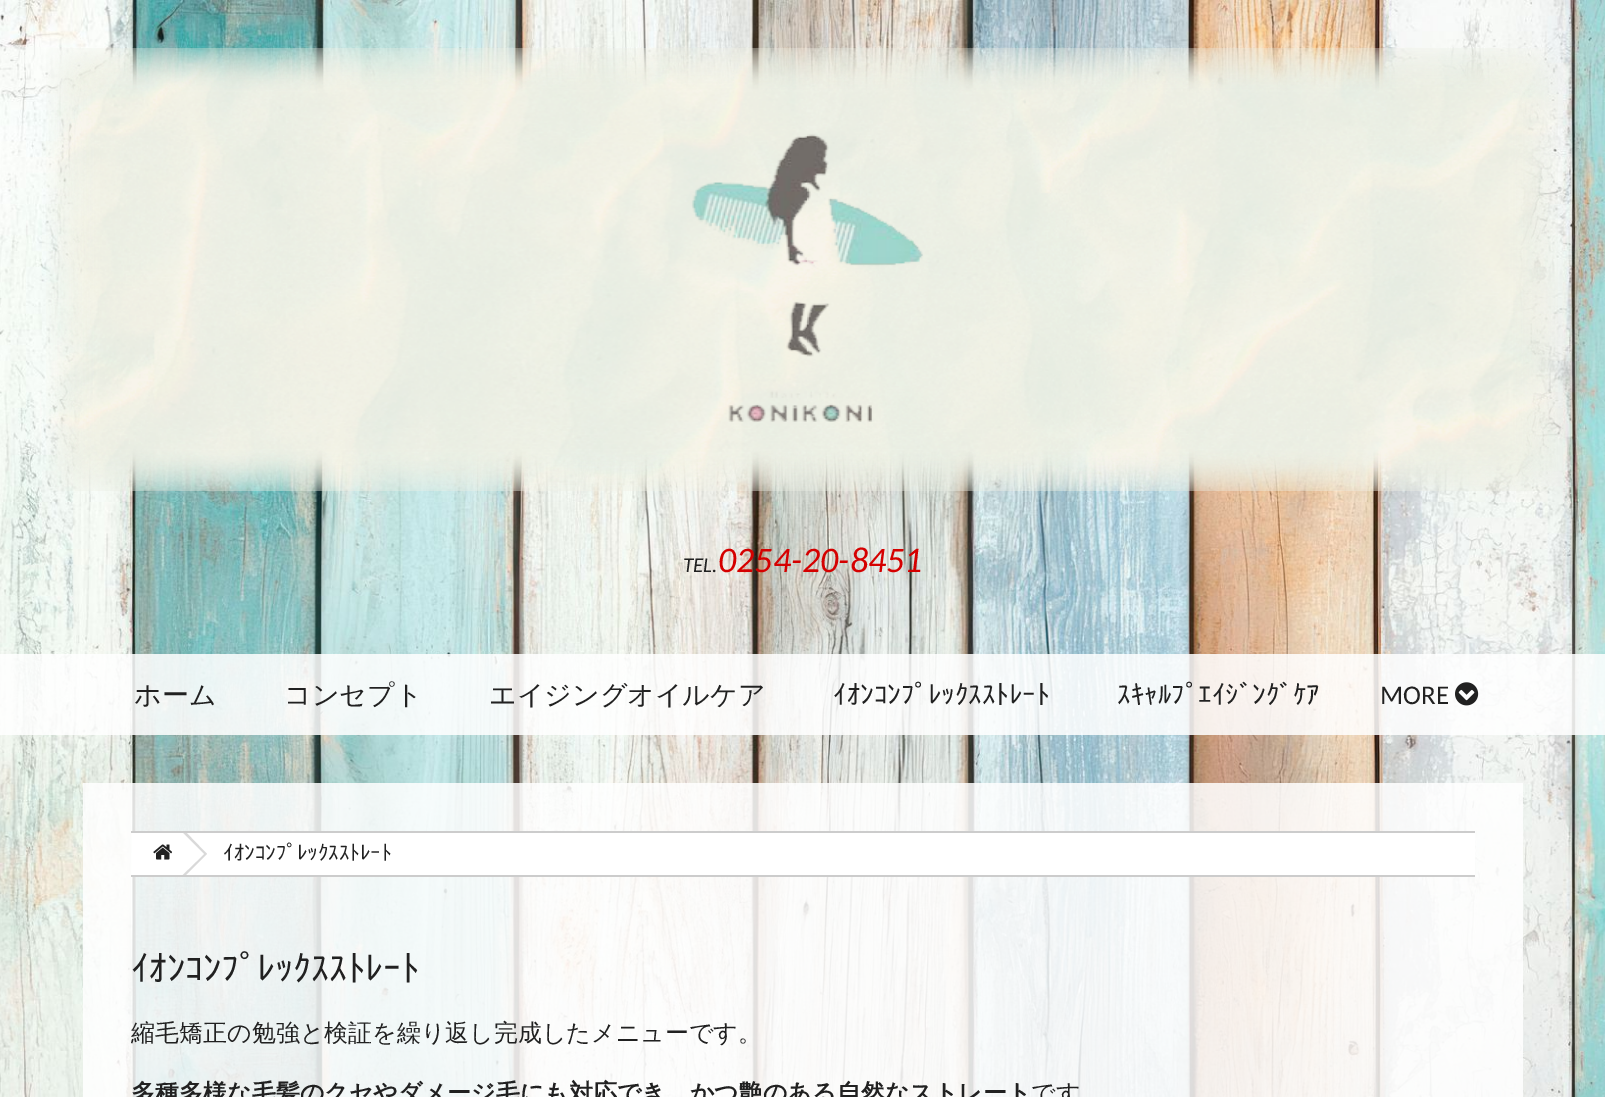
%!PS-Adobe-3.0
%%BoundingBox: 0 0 1605 1097
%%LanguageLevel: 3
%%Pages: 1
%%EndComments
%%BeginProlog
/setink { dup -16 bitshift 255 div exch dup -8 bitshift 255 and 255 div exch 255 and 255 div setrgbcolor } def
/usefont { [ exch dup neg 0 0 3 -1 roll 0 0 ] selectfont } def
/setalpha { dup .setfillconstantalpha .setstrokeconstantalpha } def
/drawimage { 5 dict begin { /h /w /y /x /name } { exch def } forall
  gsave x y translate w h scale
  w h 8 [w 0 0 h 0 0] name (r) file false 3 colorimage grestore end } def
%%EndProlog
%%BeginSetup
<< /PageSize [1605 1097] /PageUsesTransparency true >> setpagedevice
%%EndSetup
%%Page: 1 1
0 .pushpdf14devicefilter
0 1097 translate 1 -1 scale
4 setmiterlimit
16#FFFFFF setink
0 0 1605 1097 rectfill
(img1.raw) 0 0 1605 1097 drawimage
(img2.raw) 46 48 1512 443 drawimage
/Carlito-Italic 21 usefont
16#212121 setink
683 572 moveto (TEL.) show
/Carlito-Italic 36 usefont
16#D50000 setink
718 572 moveto (0254-20-8451) show
0.85 setalpha
16#FFFFFF setink
0 654 1605 81 rectfill
/WenQuanYiZenHei-Medium 27 usefont
1 setalpha
16#212121 setink
[
    [(ホーム) 134 704]
    [(コンセプト) 284 704]
    [(エイジングオイルケア) 489 704]
] { aload pop moveto show } forall
/IPAPGothic-Regular 27 usefont
833 704 moveto (ｲｵﾝｺﾝﾌﾟﾚｯｸｽｽﾄﾚｰﾄ) show
1117 704 moveto (ｽｷｬﾙﾌﾟｴｲｼﾞﾝｸﾞｹｱ) show
/Carlito-Regular 27 usefont
1380 704 moveto (MORE) show
(img3.raw) 1455 682 24 24 drawimage
0.85 setalpha
[
    [83 783 1440 314 16#FFFFFF]
] { aload pop setink rectfill } forall
1 setalpha
[
    [132 833 1343 42 16#FFFFFF]
    [131 831 1344 2 16#CCCCCC]
    [131 875 1344 2 16#CCCCCC]
] { aload pop setink rectfill } forall
gsave
131 833 1344 42 rectclip
16#D9D9D9 setink
176 885 moveto 176 822 lineto 207 854 lineto closepath fill
16#FFFFFF setink
172 885 moveto 172 822 lineto 204 854 lineto closepath fill
grestore
(img4.raw) 153 844 19 16 drawimage
/IPAPGothic-Regular 21 usefont
16#212121 setink
223 860 moveto (ｲｵﾝｺﾝﾌﾟﾚｯｸｽｽﾄﾚｰﾄ) show
/IPAPGothic-Regular 36 usefont
131 981 moveto (ｲｵﾝｺﾝﾌﾟﾚｯｸｽｽﾄﾚｰﾄ) show
gsave
131 948 1344 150 rectclip
/WenQuanYiZenHei-Medium 24 usefont
131 1041 moveto (縮毛矯正の勉強と検証を繰り返し完成したメニューです。) show
grestore
/WenQuanYiZenHei-Bold 24 usefont
131 1101 moveto (多種多様な毛髪のクセやダメージ毛にも対応でき、かつ艶のある自然なストレート) show
/WenQuanYiZenHei-Medium 24 usefont
1031 1101 moveto (です) show
.poppdf14devicefilter showpage
%%EOF
